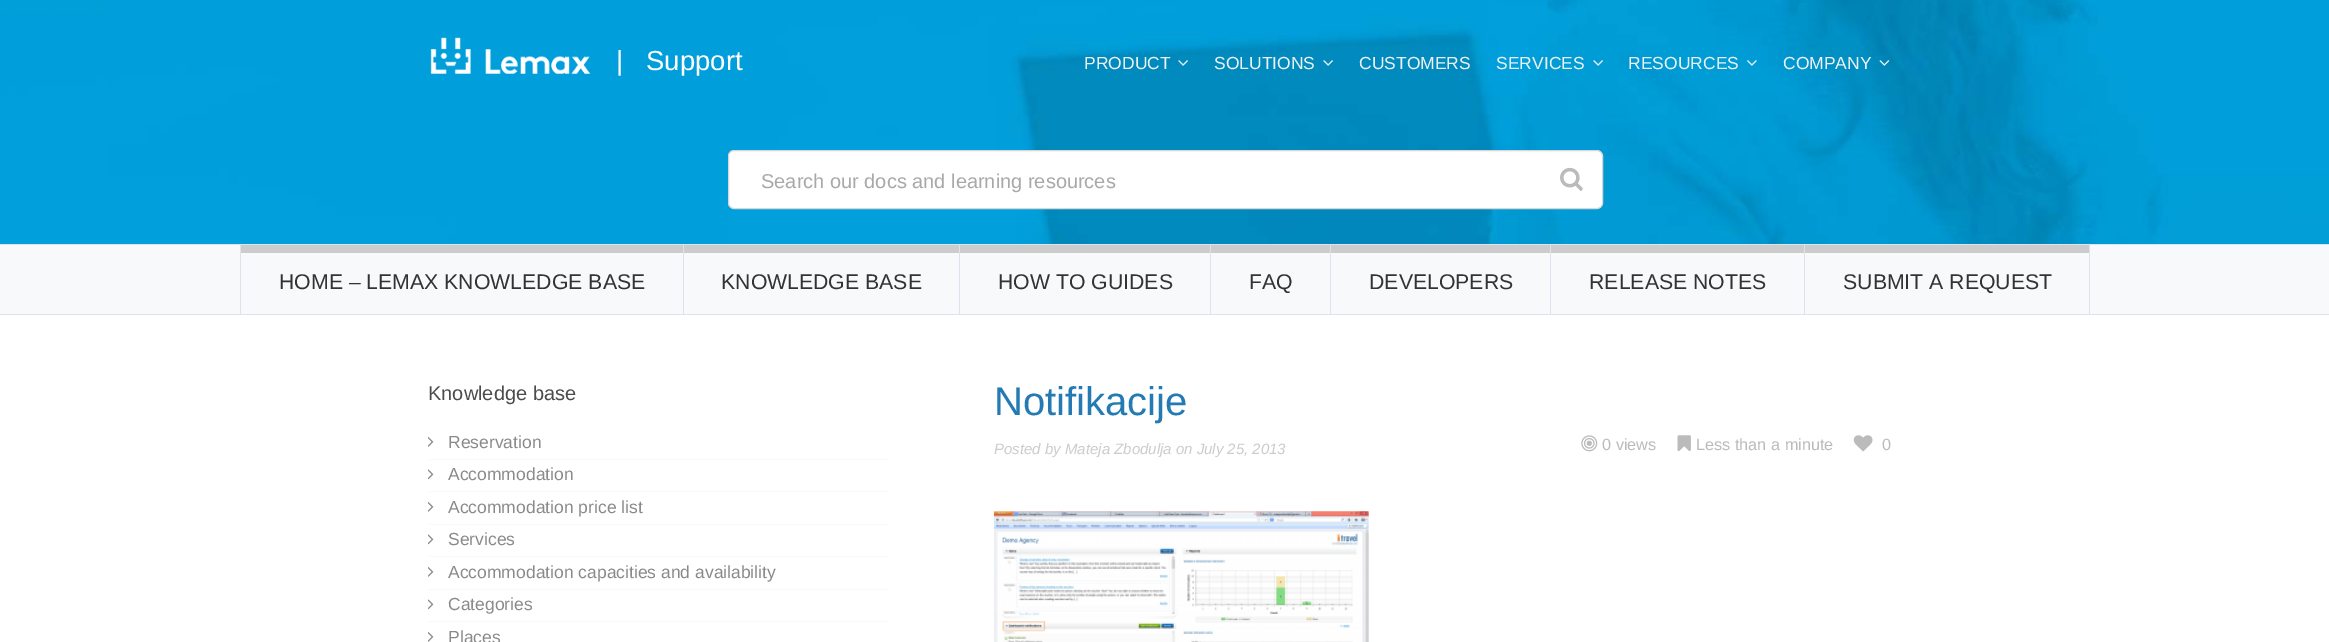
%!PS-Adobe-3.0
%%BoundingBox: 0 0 2329 642
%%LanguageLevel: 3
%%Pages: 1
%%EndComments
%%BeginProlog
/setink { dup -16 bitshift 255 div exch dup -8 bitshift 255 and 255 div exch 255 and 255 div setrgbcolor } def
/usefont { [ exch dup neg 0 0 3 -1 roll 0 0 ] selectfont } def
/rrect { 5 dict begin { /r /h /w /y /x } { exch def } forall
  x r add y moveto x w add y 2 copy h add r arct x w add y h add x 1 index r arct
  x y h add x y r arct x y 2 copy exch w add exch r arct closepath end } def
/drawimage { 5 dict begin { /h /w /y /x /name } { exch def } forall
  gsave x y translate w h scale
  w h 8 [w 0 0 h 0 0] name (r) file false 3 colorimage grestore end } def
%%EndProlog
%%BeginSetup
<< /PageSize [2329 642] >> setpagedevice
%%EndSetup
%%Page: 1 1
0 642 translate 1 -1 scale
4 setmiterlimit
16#FFFFFF setink
0 0 2329 642 rectfill
(img1.raw) 0 0 2329 244 drawimage
(img2.raw) 430 37 161 37 drawimage
/LiberationSans-Regular 27.5 usefont
616 70 moveto (|) show
646 70 moveto (Support) show
/LiberationSans-Regular 17.5 usefont
16#EFF2F3 setink
1084 69 moveto (PRODUCT) show
(img3.raw) 1178 60 10 6 drawimage
1214 69 moveto (SOLUTIONS) show
(img3.raw) 1323 60 10 6 drawimage
1359 69 moveto (CUSTOMERS) show
1496 69 moveto (SERVICES) show
(img4.raw) 1593 60 10 6 drawimage
1628 69 moveto (RESOURCES) show
(img5.raw) 1747 60 10 6 drawimage
1783 69 moveto (COMPANY) show
(img6.raw) 1879 60 11 6 drawimage
16#FFFFFF setink
728.5 150.5 874 58 5.5 rrect gsave fill grestore
16#D7D7D7 setink
stroke
/LiberationSans-Regular 20 usefont
16#A9A9A9 setink
761 188 moveto (Search our docs and learning resources) show
(img7.raw) 1560 167 23 24 drawimage
[
    [0 244 2329 1 16#DDE3ED]
    [0 245 2329 69 16#F8F9FB]
    [0 314 2329 1 16#DDE3ED]
    [683 245 1 69 16#DDE3ED]
    [240 245 1 69 16#DDE3ED]
    [241 245 442 8 16#CCCCCC]
] { aload pop setink rectfill } forall
/LiberationSans-Regular 21.25 usefont
16#333333 setink
279 289 moveto (HOME – LEMAX KNOWLEDGE BASE) show
16#DDE3ED setink
959 245 1 69 rectfill
16#CCCCCC setink
684 245 275 8 rectfill
16#333333 setink
721 289 moveto (KNOWLEDGE BASE) show
16#DDE3ED setink
1210 245 1 69 rectfill
16#CCCCCC setink
960 245 250 8 rectfill
16#333333 setink
998 289 moveto (HOW TO GUIDES) show
16#DDE3ED setink
1330 245 1 69 rectfill
16#CCCCCC setink
1211 245 119 8 rectfill
16#333333 setink
1249 289 moveto (FAQ) show
16#DDE3ED setink
1550 245 1 69 rectfill
16#CCCCCC setink
1331 245 219 8 rectfill
16#333333 setink
1369 289 moveto (DEVELOPERS) show
16#DDE3ED setink
1804 245 1 69 rectfill
16#CCCCCC setink
1551 245 253 8 rectfill
16#333333 setink
1589 289 moveto (RELEASE NOTES) show
16#DDE3ED setink
2089 245 1 69 rectfill
16#CCCCCC setink
1805 245 284 8 rectfill
16#333333 setink
1843 289 moveto (SUBMIT A REQUEST) show
/LiberationSans-Regular 20 usefont
16#4B4D4B setink
428 400 moveto (Knowledge base) show
16#F9F9F9 setink
428 459 461 1 rectfill
(img8.raw) 428 437 6 10 drawimage
/LiberationSans-Regular 17.5 usefont
16#8A8A8A setink
448 448 moveto (Reservation) show
16#F9F9F9 setink
428 491 461 1 rectfill
(img9.raw) 428 469 6 11 drawimage
16#8A8A8A setink
448 480 moveto (Accommodation) show
16#F9F9F9 setink
428 524 461 1 rectfill
(img8.raw) 428 502 6 10 drawimage
16#8A8A8A setink
448 513 moveto (Accommodation price list) show
16#F9F9F9 setink
428 556 461 1 rectfill
(img9.raw) 428 534 6 11 drawimage
16#8A8A8A setink
448 545 moveto (Services) show
16#F9F9F9 setink
428 589 461 1 rectfill
(img8.raw) 428 567 6 10 drawimage
16#8A8A8A setink
448 578 moveto (Accommodation capacities and availability) show
16#F9F9F9 setink
428 621 461 1 rectfill
(img9.raw) 428 599 6 11 drawimage
16#8A8A8A setink
448 610 moveto (Categories) show
(img8.raw) 428 632 6 10 drawimage
448 643 moveto (Places) show
/LiberationSans-Regular 40 usefont
16#247BB3 setink
994 415 moveto (Notifikacije) show
/LiberationSans-Italic 15 usefont
16#CCCCCC setink
994 454 moveto (Posted by Mateja Zbodulja on July 25, 2013) show
(img10.raw) 1581 435 17 17 drawimage
/LiberationSans-Regular 16.25 usefont
16#BBBBBB setink
1602 450 moveto (0 views) show
(img11.raw) 1677 435 14 16 drawimage
1696 450 moveto (Less than a minute) show
(img12.raw) 1853 435 20 17 drawimage
1882 450 moveto (0) show
(img13.raw) 993 511 376 131 drawimage
showpage
%%EOF
